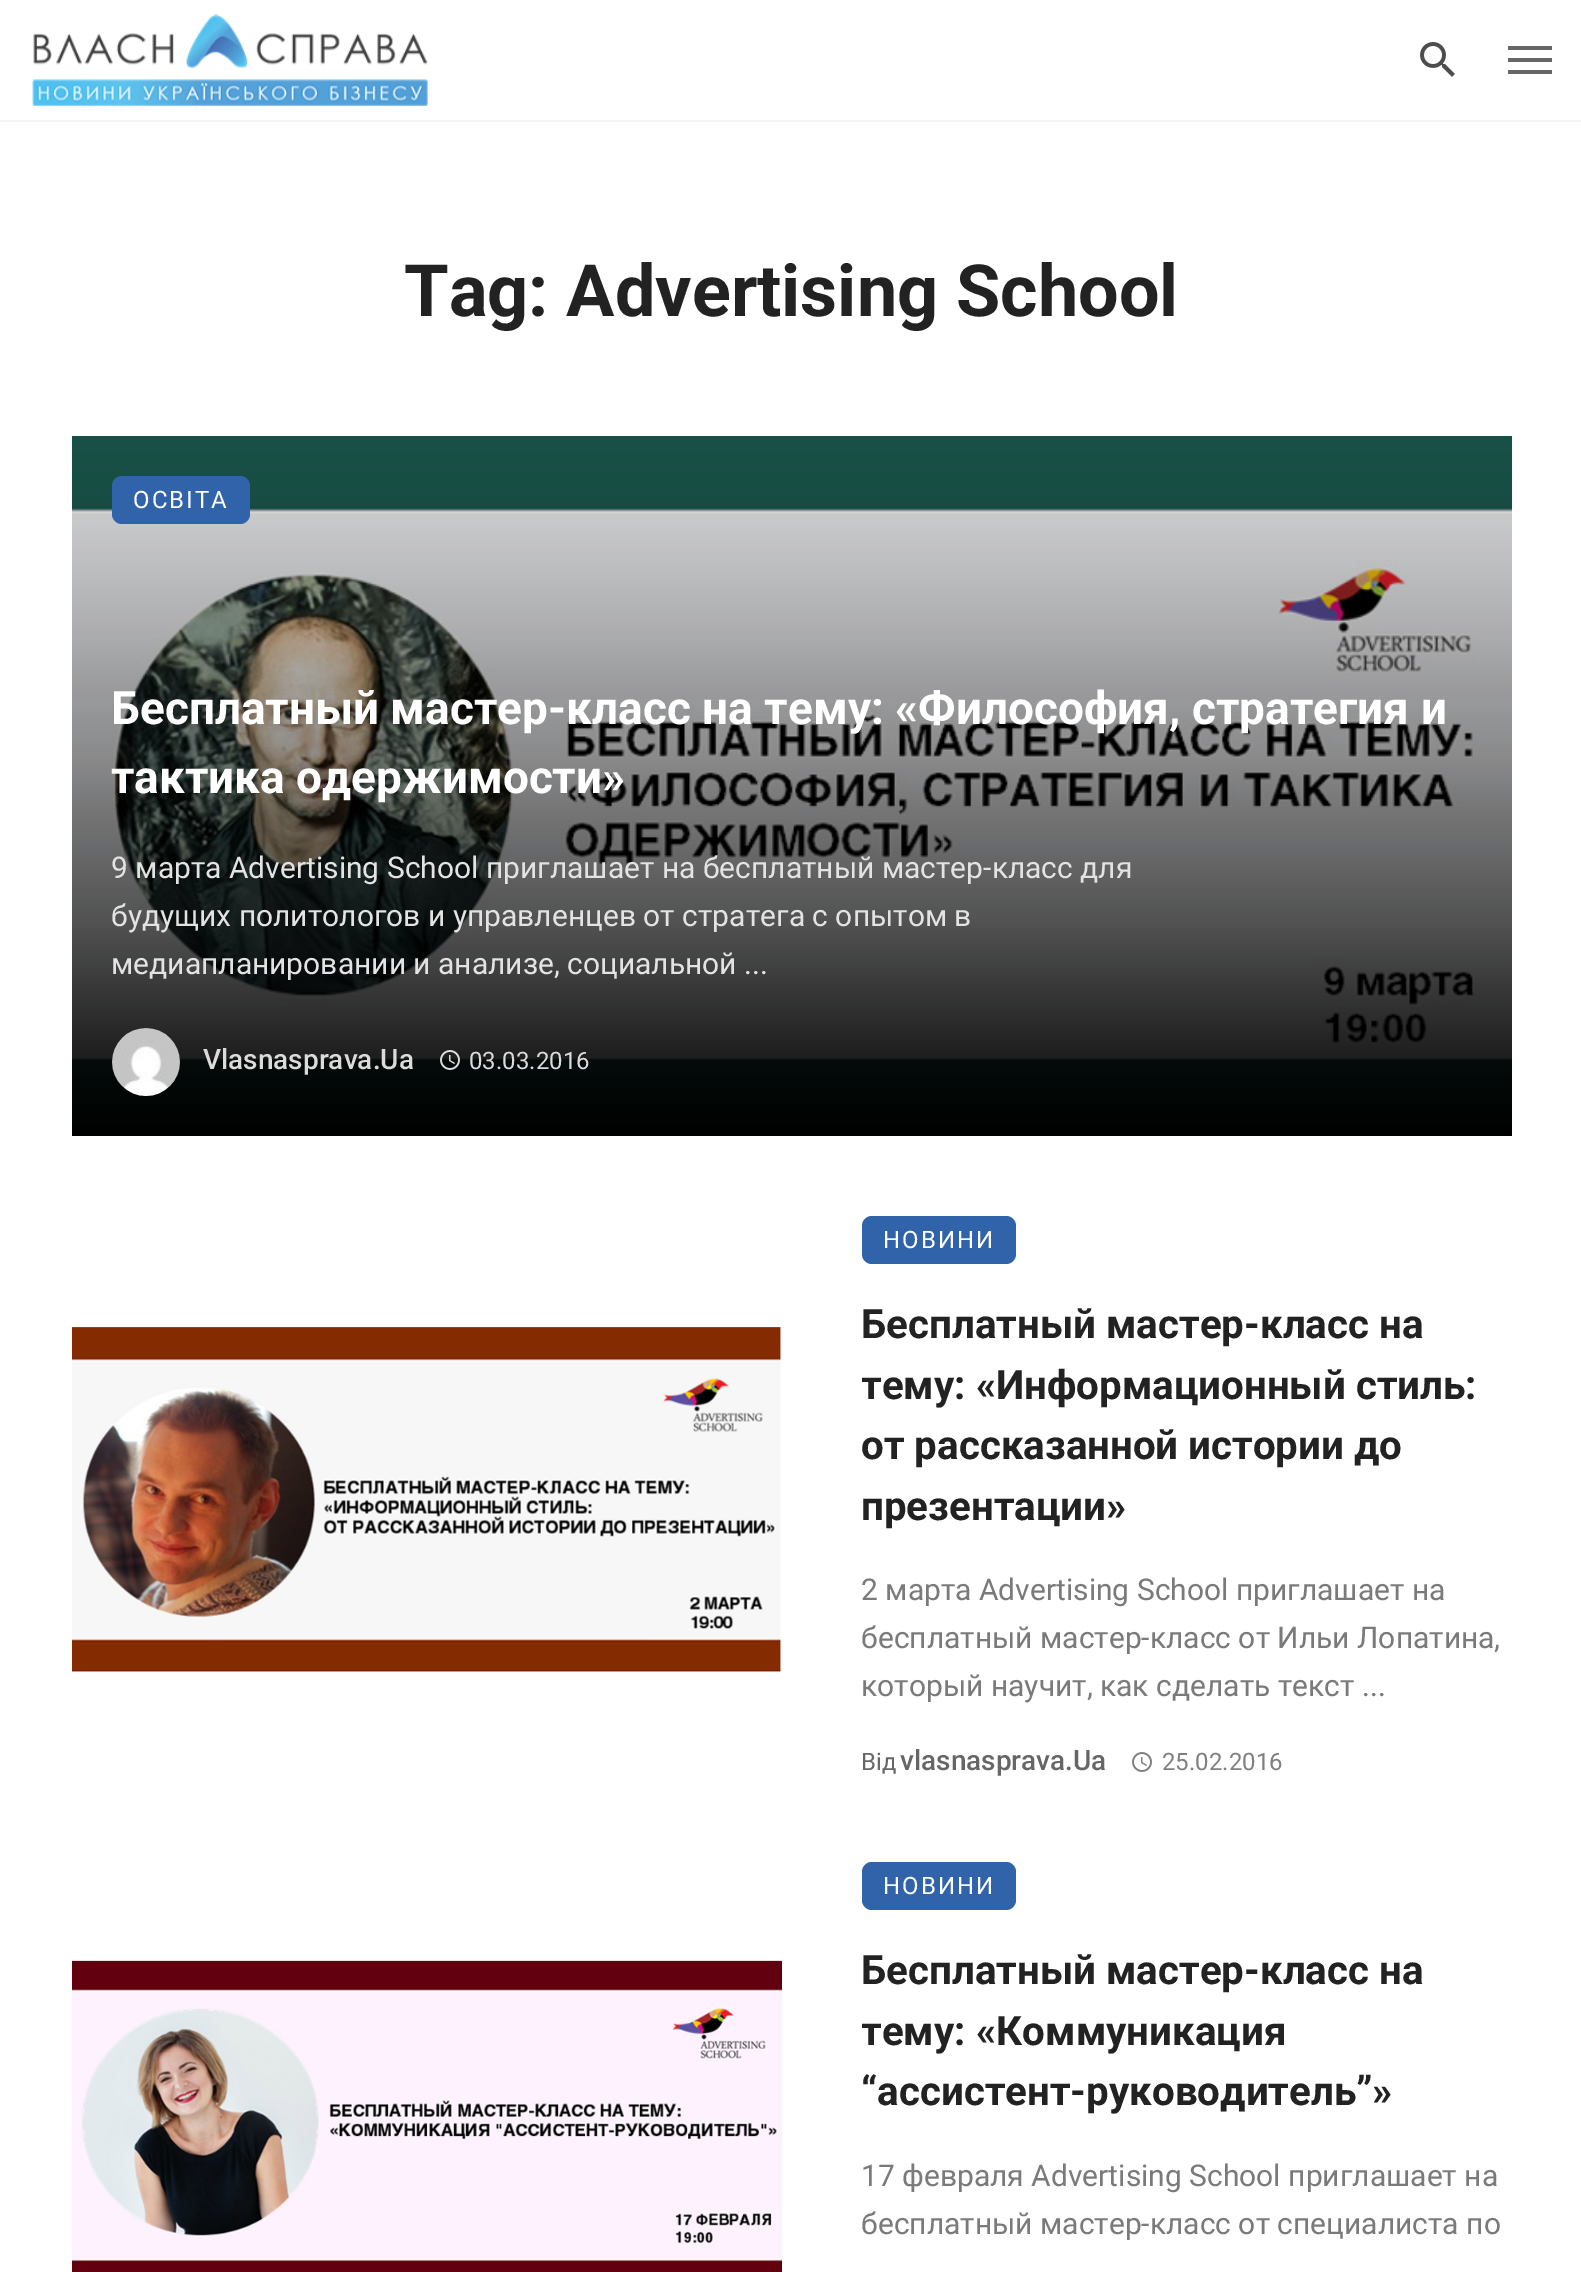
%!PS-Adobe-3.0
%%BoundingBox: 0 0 1581 2272
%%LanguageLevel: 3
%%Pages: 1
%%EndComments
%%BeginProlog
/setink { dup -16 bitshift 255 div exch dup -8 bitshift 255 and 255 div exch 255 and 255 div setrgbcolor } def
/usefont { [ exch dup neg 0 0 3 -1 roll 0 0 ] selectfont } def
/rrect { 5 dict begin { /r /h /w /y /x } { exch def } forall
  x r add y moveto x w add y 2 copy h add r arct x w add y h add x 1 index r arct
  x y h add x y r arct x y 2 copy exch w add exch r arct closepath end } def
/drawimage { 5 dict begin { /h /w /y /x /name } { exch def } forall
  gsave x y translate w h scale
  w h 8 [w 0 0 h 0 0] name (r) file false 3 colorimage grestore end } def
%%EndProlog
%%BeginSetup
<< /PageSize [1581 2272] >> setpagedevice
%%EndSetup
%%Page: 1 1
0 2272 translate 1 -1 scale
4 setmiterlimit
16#FFFFFF setink
0 0 1581 2272 rectfill
16#F5F5F5 setink
0 120 1581 2 rectfill
(img1.raw) 32 14 396 92 drawimage
(img2.raw) 1420 42 35 35 drawimage
[
    [1508 58 44 4 16#676767]
    [1508 46 44 4 16#676767]
    [1508 70 44 4 16#676767]
] { aload pop setink rectfill } forall
/Roboto-Bold 72 usefont
16#222222 setink
404 316 moveto (Tag: Advertising School) show
(img3.raw) 72 436 1440 700 drawimage
16#3163AA setink
112 476 138 48 10 rrect fill
/Roboto-Regular 24 usefont
16#FFFFFF setink
133 508 moveto 2 0 (ОСВІТА) ashow
/Roboto-Bold 46 usefont
111 724 moveto (Бесплатный мастер-класс на тему: «Философия, стратегия и) show
111 793 moveto (тактика одержимости») show
/Roboto-Regular 30 usefont
16#E3E3E3 setink
[
    [(9 марта Advertising School приглашает на бесплатный мастер-класс для) 111 878]
    [(будущих политологов и управленцев от стратега с опытом в) 111 926]
    [(медиапланировании и анализе, социальной ...) 111 974]
] { aload pop moveto show } forall
(img4.raw) 112 1028 68 68 drawimage
/Roboto-Medium 28 usefont
16#DBDBDB setink
203 1069 moveto (Vlasnasprava.Ua) show
(img5.raw) 440 1050 20 20 drawimage
/Roboto-Regular 24 usefont
469 1069 moveto (03.03.2016) show
(img6.raw) 72 1327 710 345 drawimage
16#3163AA setink
862 1216 154 48 10 rrect fill
16#FFFFFF setink
883 1248 moveto 2 0 (НОВИНИ) ashow
/Roboto-Bold 40.3 usefont
16#222222 setink
861 1338 moveto (Бесплатный мастер-класс на) show
gsave
862 1216 650 566 rectclip
861 1399 moveto (тему: «Информационный стиль:) show
grestore
861 1459 moveto (от рассказанной истории до) show
861 1520 moveto (презентации») show
/Roboto-Regular 30 usefont
16#7A7A7A setink
[
    [(2 марта Advertising School приглашает на) 861 1600]
    [(бесплатный мастер-класс от Ильи Лопатина,) 861 1648]
    [(который научит, как сделать текст ...) 861 1696]
] { aload pop moveto show } forall
/Roboto-Regular 24 usefont
16#666666 setink
861 1770 moveto (Від) show
/Roboto-Medium 28 usefont
900 1770 moveto (vlasnasprava.Ua) show
(img7.raw) 1132 1752 20 20 drawimage
/Roboto-Regular 24 usefont
16#808080 setink
1162 1770 moveto (25.02.2016) show
(img8.raw) 72 1960 710 312 drawimage
16#3163AA setink
862 1862 154 48 10 rrect fill
16#FFFFFF setink
883 1894 moveto 2 0 (НОВИНИ) ashow
/Roboto-Bold 40.3 usefont
16#222222 setink
861 1984 moveto (Бесплатный мастер-класс на) show
gsave
862 1862 650 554 rectclip
861 2045 moveto (тему:) show
grestore
976 2045 moveto («Коммуникация) show
861 2105 moveto (“ассистент-руководитель”») show
/Roboto-Regular 30 usefont
16#7A7A7A setink
861 2186 moveto (17 февраля Advertising School приглашает на) show
861 2234 moveto (бесплатный мастер-класс от специалиста по) show
showpage
%%EOF
